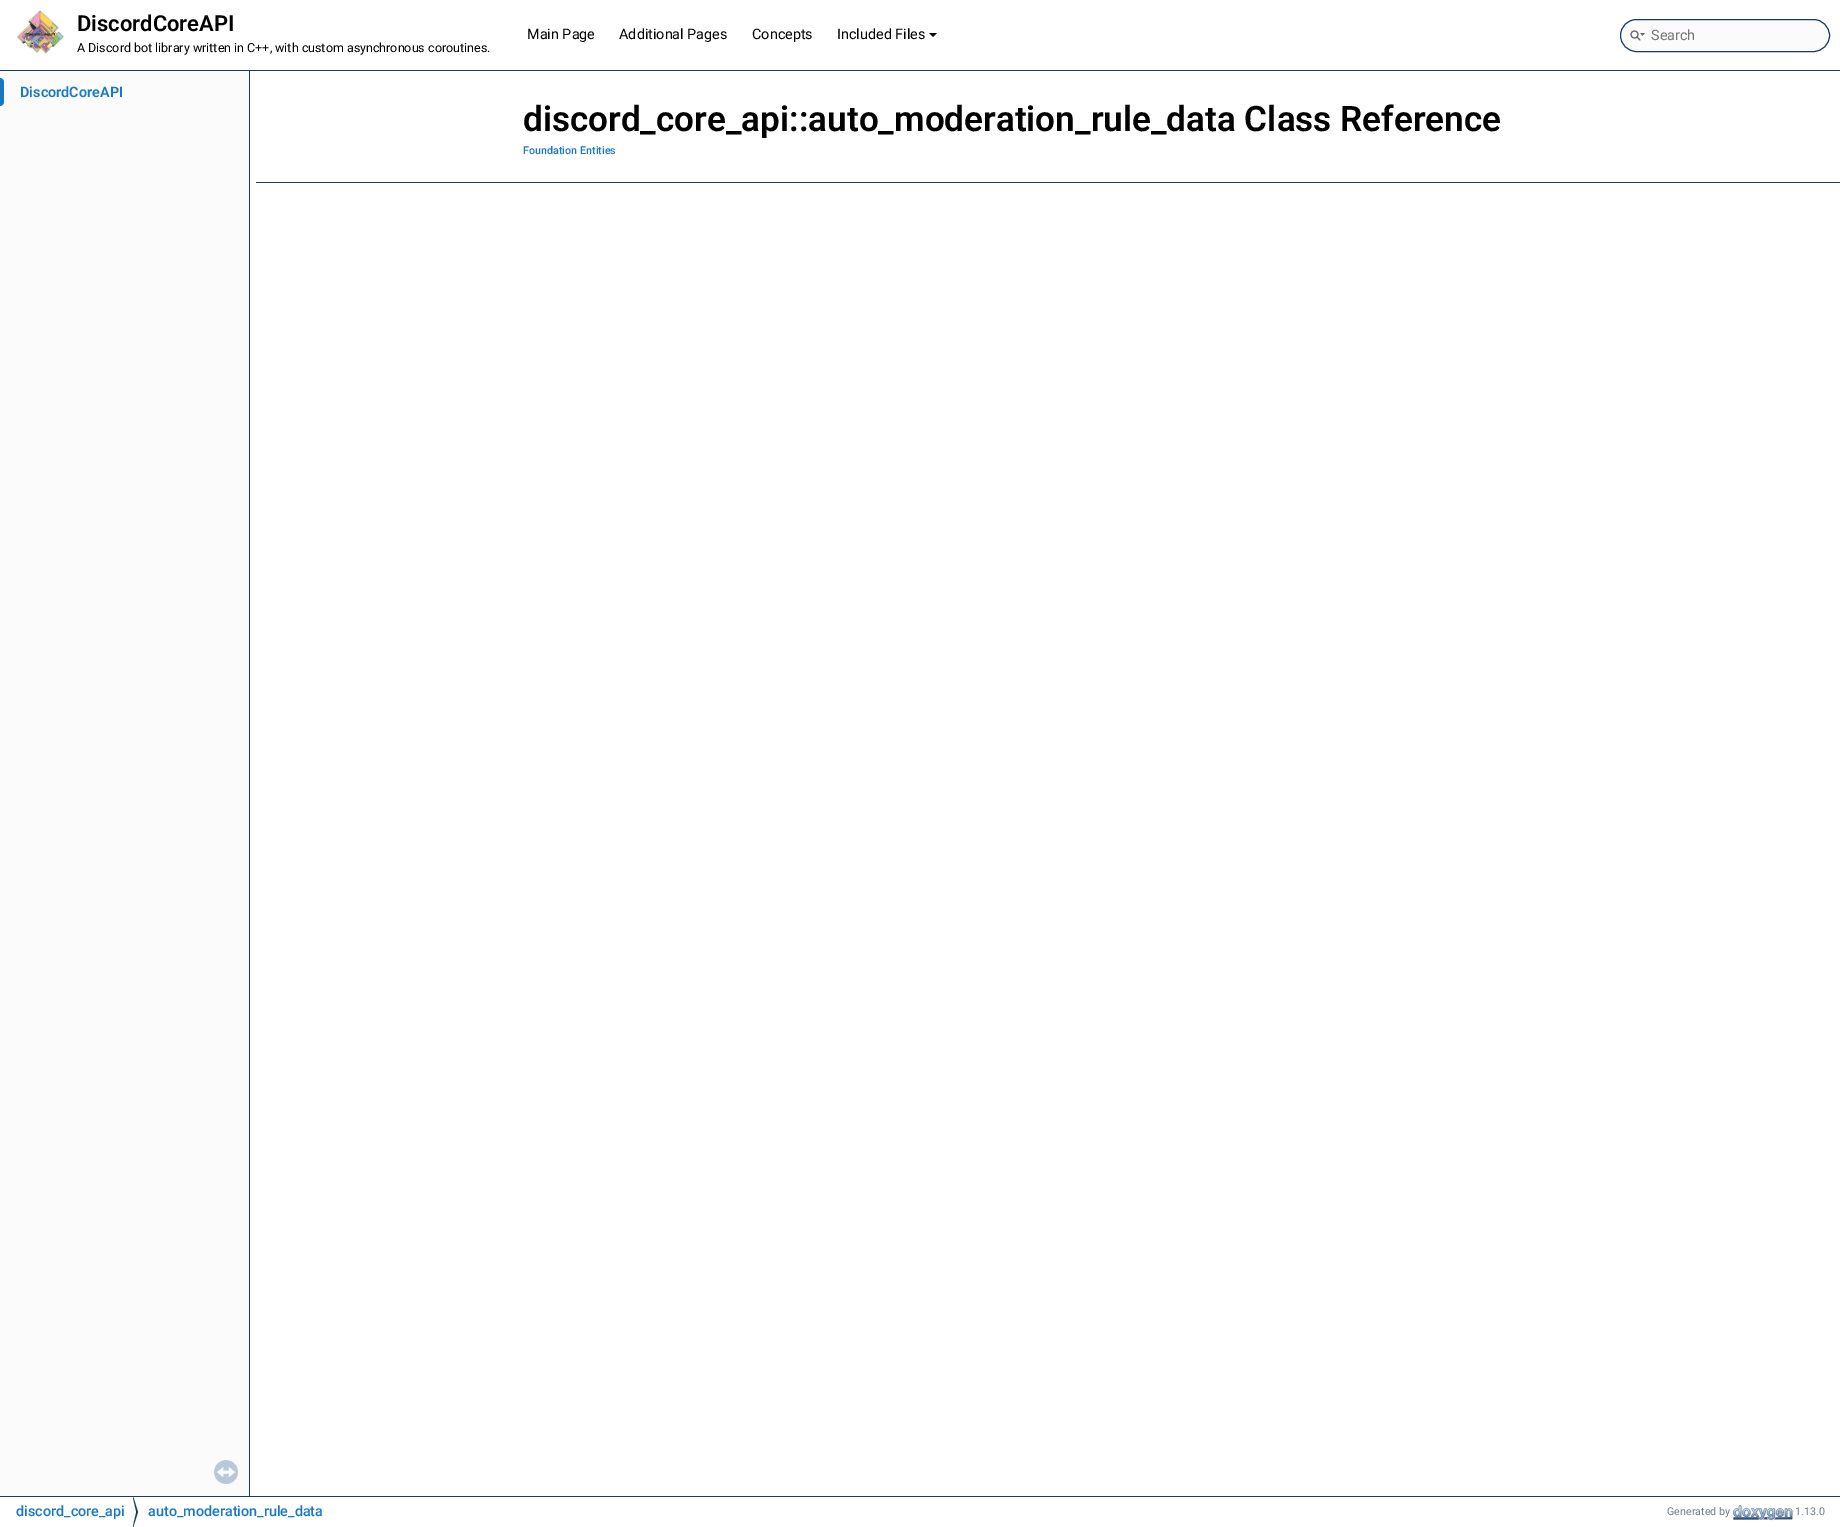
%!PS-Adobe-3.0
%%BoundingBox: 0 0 1840 1527
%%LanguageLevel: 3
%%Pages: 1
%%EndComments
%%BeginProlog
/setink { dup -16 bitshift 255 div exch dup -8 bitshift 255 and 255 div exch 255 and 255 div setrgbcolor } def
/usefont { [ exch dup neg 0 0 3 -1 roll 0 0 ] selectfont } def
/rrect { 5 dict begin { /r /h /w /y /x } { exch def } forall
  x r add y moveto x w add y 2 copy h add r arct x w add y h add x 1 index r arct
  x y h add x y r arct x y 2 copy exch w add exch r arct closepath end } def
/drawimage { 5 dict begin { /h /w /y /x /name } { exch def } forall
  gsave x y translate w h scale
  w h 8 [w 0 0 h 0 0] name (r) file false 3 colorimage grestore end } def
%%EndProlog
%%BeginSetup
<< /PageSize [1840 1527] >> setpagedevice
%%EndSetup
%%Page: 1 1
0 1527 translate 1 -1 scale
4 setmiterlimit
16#FFFFFF setink
0 0 1840 1527 rectfill
16#1A3C64 setink
0 70 1840 1 rectfill
(img1.raw) 17 10 47 44 drawimage
/Roboto-SemiBold 22 usefont
16#000000 setink
77 31 moveto (DiscordCoreAPI) show
/Roboto-Regular 12.5 usefont
77 52 moveto (A Discord bot library written in C++, with custom asynchronous coroutines.) show
/Roboto-Regular 14.4 usefont
[
    [(Main Page) 527 39]
    [(Additional Pages) 619 39]
    [(Concepts) 752 39]
    [(Included Files) 837 39]
] { aload pop moveto show } forall
929 33 moveto 937 33 lineto 933 37 lineto closepath fill
16#FBFBFB setink
1620.5 19.5 209 32 16 rrect gsave fill grestore
16#1A3C64 setink
stroke
(img2.raw) 1630 30 15 11 drawimage
16#757575 setink
1651 40 moveto (Search) show
16#FBFBFB setink
0 71 249 1425 rectfill
16#1779C4 setink
0 78 moveto 2 78 4 80 4 82 curveto 4 102 lineto 4 104 2 106 0 106 curveto closepath fill
/Roboto-SemiBold 14.4 usefont
20 97 moveto (DiscordCoreAPI) show
(img3.raw) 214 1460 24 24 drawimage
16#1A3C64 setink
249 71 1 1425 rectfill
256 182 1584 1 rectfill
/Roboto-SemiBold 35.1 usefont
16#000000 setink
523 131 moveto (discord_core_api::auto_moderation_rule_data Class Reference) show
/Roboto-Medium 10.75 usefont
16#1779C4 setink
523 154 moveto (Foundation Entities) show
16#1A3C64 setink
0 1496 1840 1 rectfill
/Roboto-Medium 14.4 usefont
16#1779C4 setink
16 1516 moveto (discord_core_api) show
16#1A3C64 setink
133 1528 moveto 133 1496 lineto 138 1512 lineto closepath fill
gsave
0 1497 1840 30 rectclip
16#FFFFFF setink
131 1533 moveto 131 1491 lineto 136 1512 lineto closepath fill
grestore
16#1779C4 setink
148 1516 moveto (auto_moderation_rule_data) show
/Roboto-Regular 10.75 usefont
16#6F7E8E setink
1667 1515 moveto (Generated by) show
(img4.raw) 1733 1505 60 16 drawimage
1795 1515 moveto (1.13.0) show
showpage
%%EOF
